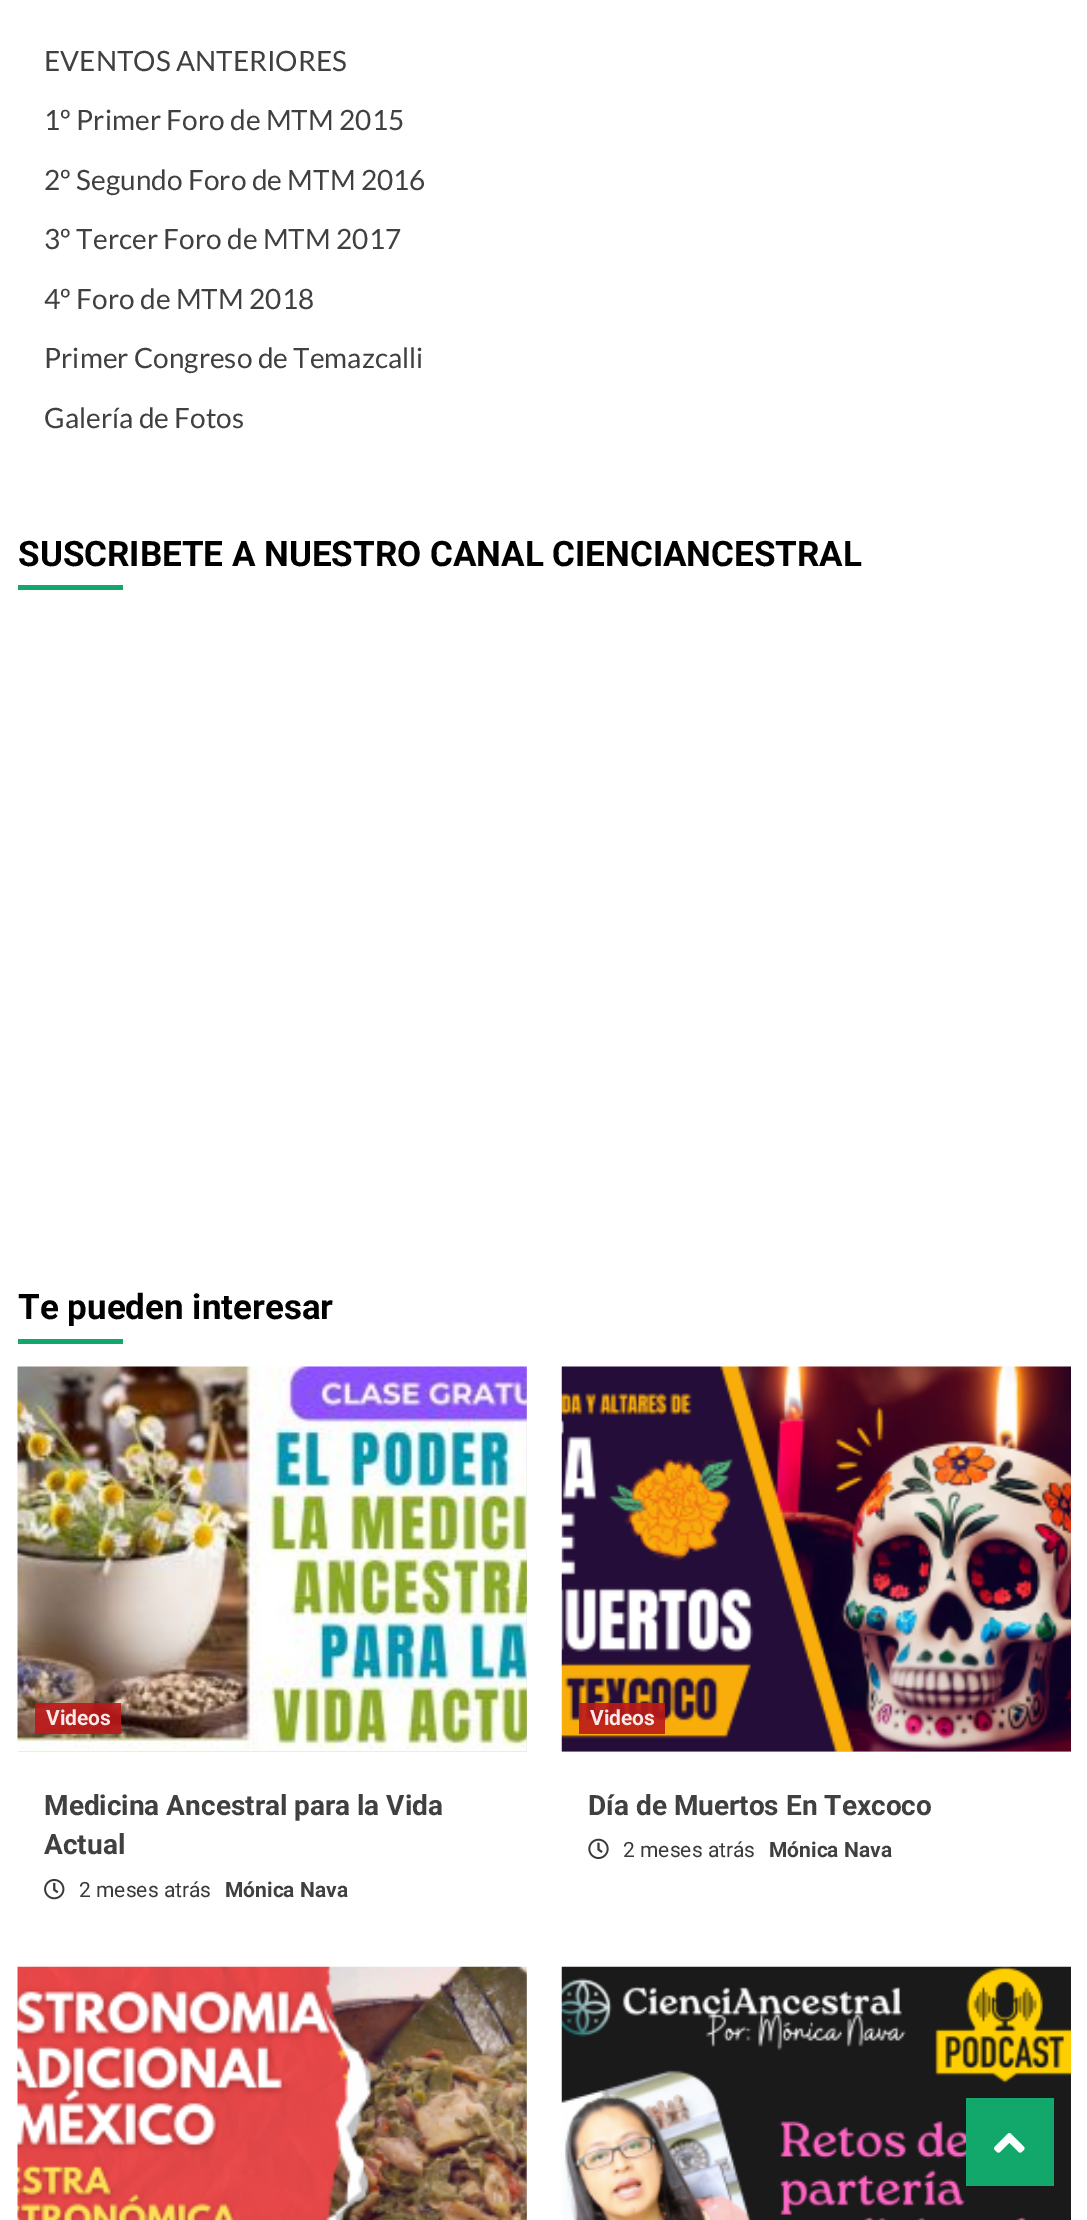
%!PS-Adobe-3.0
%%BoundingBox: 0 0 1087 2220
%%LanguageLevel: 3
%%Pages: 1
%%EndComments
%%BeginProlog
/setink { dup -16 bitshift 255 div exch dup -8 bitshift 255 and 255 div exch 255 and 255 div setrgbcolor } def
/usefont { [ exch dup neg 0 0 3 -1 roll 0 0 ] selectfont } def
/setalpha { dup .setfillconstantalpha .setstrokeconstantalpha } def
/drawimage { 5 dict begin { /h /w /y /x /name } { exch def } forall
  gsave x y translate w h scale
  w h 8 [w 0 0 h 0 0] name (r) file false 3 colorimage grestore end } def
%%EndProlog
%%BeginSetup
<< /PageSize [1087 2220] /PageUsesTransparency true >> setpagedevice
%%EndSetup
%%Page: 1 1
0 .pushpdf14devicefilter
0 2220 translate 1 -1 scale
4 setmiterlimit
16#FFFFFF setink
0 0 1087 2220 rectfill
/Lato-Regular 28 usefont
16#404040 setink
[
    [(EVENTOS ANTERIORES) 44 71]
    [(1º Primer Foro de MTM 2015) 44 130]
    [(2º Segundo Foro de MTM 2016) 44 190]
    [(3º Tercer Foro de MTM 2017) 44 249]
    [(4º Foro de MTM 2018) 44 309]
    [(Primer Congreso de Temazcalli) 44 368]
    [(Galería de Fotos) 44 428]
] { aload pop moveto show } forall
/Roboto-Bold 35 usefont
16#000000 setink
18 566 moveto (SUSCRIBETE A NUESTRO CANAL CIENCIANCESTRAL) show
16#12A86B setink
18 585 105 5 rectfill
16#000000 setink
18 1319 moveto (Te pueden interesar) show
16#12A86B setink
18 1339 105 5 rectfill
16#D8D8D8 setink
18 1367 509 385 rectfill
(img1.raw) 17 1366 510 386 drawimage
0.9 setalpha
16#BB1919 setink
35 1703 86 31 rectfill
/Roboto-Bold 21 usefont
1 setalpha
16#F7E9E8 setink
46 1725 moveto (Videos) show
/Roboto-Bold 28 usefont
16#404040 setink
44 1815 moveto (Medicina Ancestral para la Vida) show
44 1854 moveto (Actual) show
(img2.raw) 44 1878 21 22 drawimage
/Roboto-Regular 21 usefont
16#3A3A3A setink
79 1897 moveto (2 meses atrás) show
/Roboto-Bold 21 usefont
16#404040 setink
225 1897 moveto (Mónica Nava) show
16#D8D8D8 setink
562 1751 509 1 rectfill
(img3.raw) 561 1366 510 386 drawimage
0.9 setalpha
16#BB1919 setink
579 1703 86 31 rectfill
1 setalpha
16#F7E9E8 setink
590 1725 moveto (Videos) show
/Roboto-Bold 28 usefont
16#404040 setink
588 1815 moveto (Día de Muertos En Texcoco) show
(img4.raw) 588 1838 21 22 drawimage
/Roboto-Regular 21 usefont
16#3A3A3A setink
623 1857 moveto (2 meses atrás) show
/Roboto-Bold 21 usefont
16#404040 setink
769 1857 moveto (Mónica Nava) show
(img5.raw) 17 1966 510 254 drawimage
(img6.raw) 561 1966 510 254 drawimage
16#12A86B setink
966 2098 88 88 rectfill
(img7.raw) 994 2133 31 20 drawimage
.poppdf14devicefilter showpage
%%EOF
